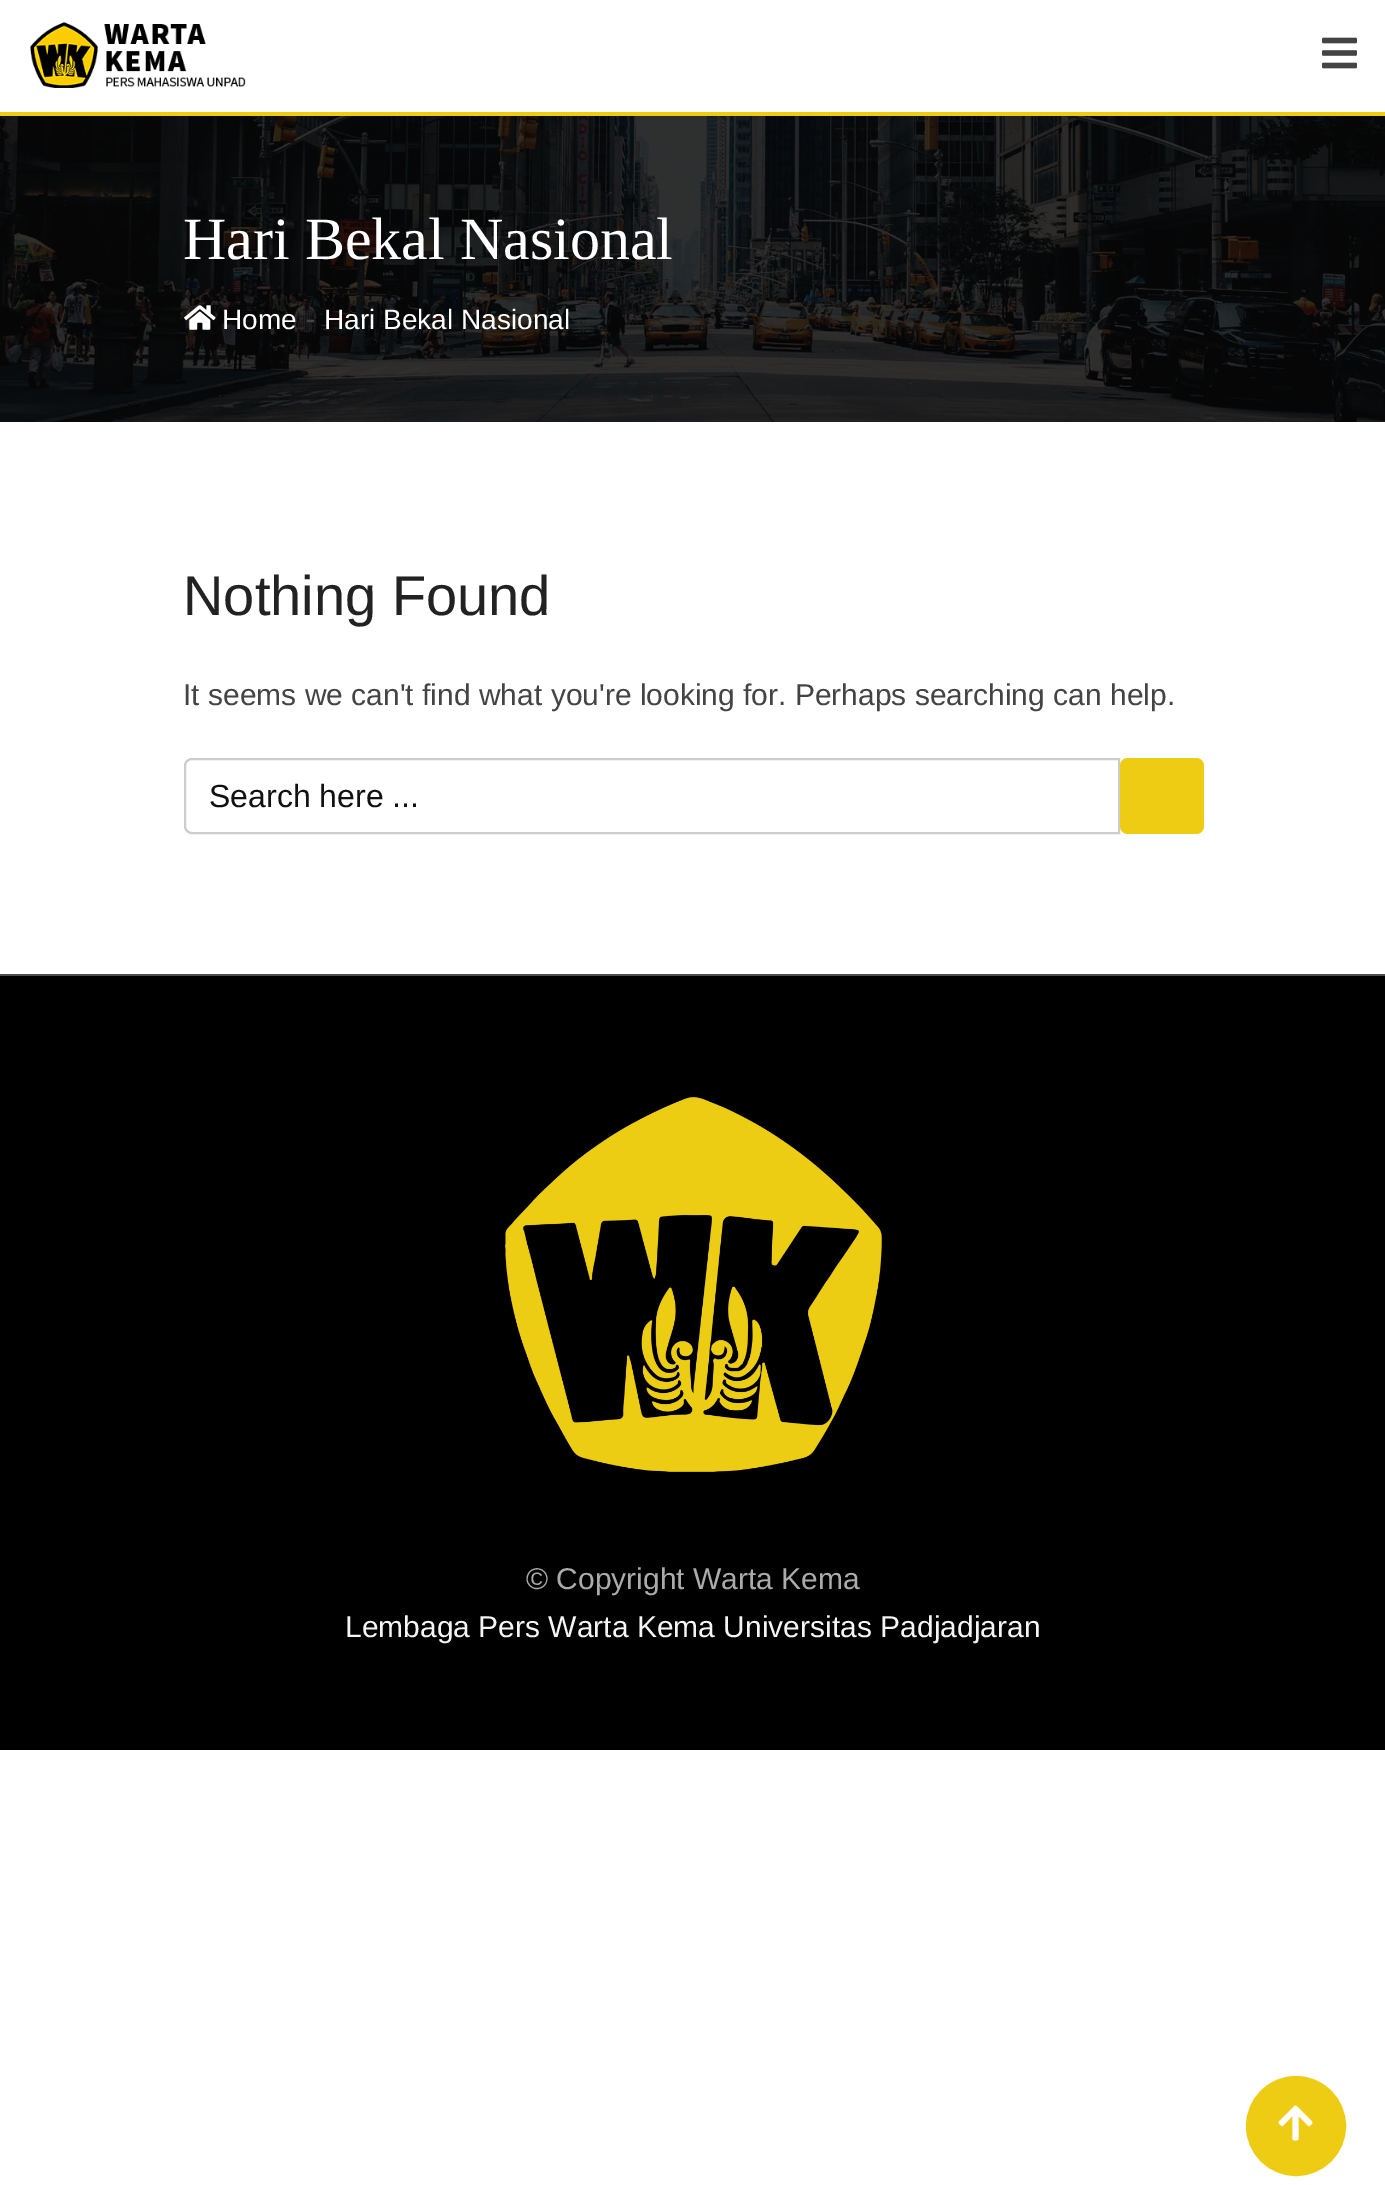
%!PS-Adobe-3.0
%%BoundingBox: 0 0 1385 2185
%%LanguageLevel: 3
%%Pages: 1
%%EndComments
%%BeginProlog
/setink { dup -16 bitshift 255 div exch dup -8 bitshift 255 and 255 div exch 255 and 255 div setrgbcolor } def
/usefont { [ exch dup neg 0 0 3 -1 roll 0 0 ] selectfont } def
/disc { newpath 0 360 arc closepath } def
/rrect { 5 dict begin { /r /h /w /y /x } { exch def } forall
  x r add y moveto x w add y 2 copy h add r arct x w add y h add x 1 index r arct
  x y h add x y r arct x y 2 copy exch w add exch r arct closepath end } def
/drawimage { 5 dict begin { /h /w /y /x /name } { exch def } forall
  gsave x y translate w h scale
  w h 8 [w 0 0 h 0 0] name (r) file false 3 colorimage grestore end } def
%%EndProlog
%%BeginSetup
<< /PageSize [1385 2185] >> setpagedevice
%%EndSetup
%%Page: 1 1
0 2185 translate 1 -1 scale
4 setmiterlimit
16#FFFFFF setink
0 0 1385 2185 rectfill
16#EECC14 setink
0 112 1385 4 rectfill
(img1.raw) 30 22 216 66 drawimage
(img2.raw) 1322 37 35 32 drawimage
(img3.raw) 0 116 1385 306 drawimage
/LiberationSerif-Regular 60 usefont
16#FFFFFF setink
183 259 moveto (Hari Bekal Nasional) show
(img4.raw) 184 305 32 25 drawimage
/LiberationSans-Regular 28 usefont
222 329 moveto (Home) show
/LiberationSans-Italic 30 usefont
16#444444 setink
305 329 moveto (-) show
/LiberationSans-Regular 28 usefont
16#FFFFFF setink
324 329 moveto (Hari Bekal Nasional) show
/LiberationSans-Regular 56 usefont
16#222222 setink
183 615 moveto (Nothing Found) show
/LiberationSans-Regular 30 usefont
16#444444 setink
183 705 moveto (It seems we can't find what you're looking for. Perhaps searching can help.) show
16#CCCCCC setink
2 setlinewidth
192 759 moveto 1119 759 lineto 1119 833 lineto 192 833 lineto 188 833 185 830 185 826 curveto 185 766 lineto 185 762 188 759 192 759 curveto closepath stroke
/LiberationSans-Regular 32 usefont
16#111111 setink
209 807 moveto (Search here ...) show
16#EECC14 setink
1120 758 84 76 8 rrect fill
16#000000 setink
0 976 1385 774 rectfill
16#4D4D4D setink
0 974 1385 2 rectfill
(img5.raw) 505 1097 377 375 drawimage
/LiberationSans-Regular 30 usefont
16#ABABAB setink
526 1589 moveto (© Copyright Warta Kema) show
16#F5F5F5 setink
345 1637 moveto (Lembaga Pers Warta Kema Universitas Padjadjaran) show
16#EECC14 setink
1296 2126 48 disc gsave fill grestore
4 setlinewidth
stroke
(img6.raw) 1278 2105 35 36 drawimage
showpage
%%EOF
